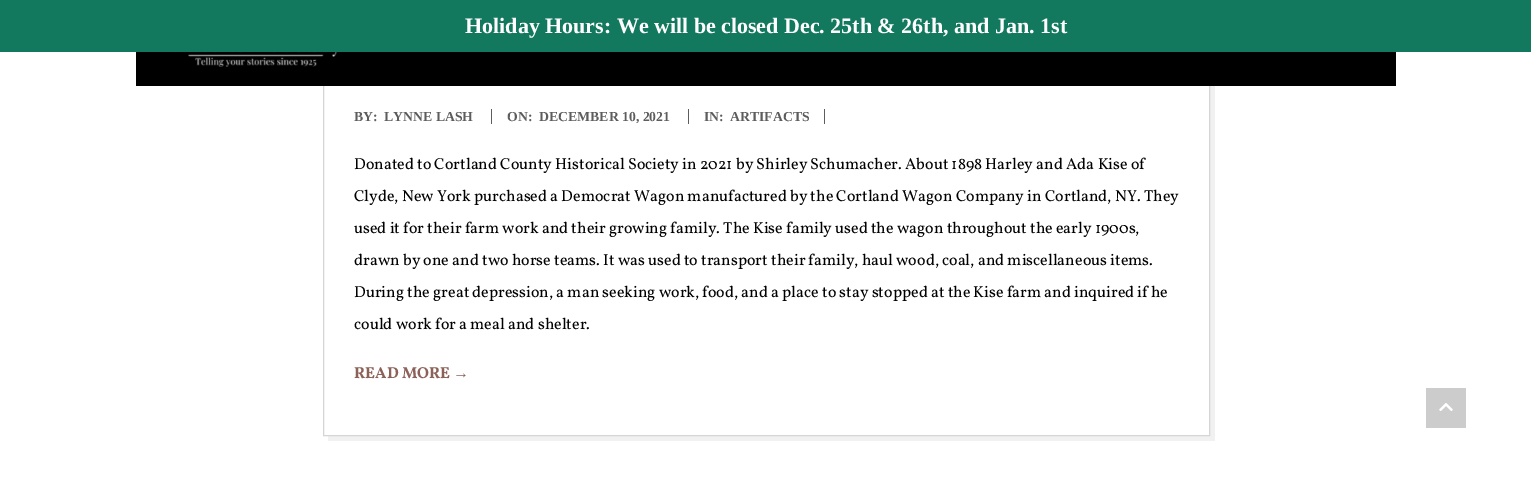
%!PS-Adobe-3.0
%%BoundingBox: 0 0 1531 483
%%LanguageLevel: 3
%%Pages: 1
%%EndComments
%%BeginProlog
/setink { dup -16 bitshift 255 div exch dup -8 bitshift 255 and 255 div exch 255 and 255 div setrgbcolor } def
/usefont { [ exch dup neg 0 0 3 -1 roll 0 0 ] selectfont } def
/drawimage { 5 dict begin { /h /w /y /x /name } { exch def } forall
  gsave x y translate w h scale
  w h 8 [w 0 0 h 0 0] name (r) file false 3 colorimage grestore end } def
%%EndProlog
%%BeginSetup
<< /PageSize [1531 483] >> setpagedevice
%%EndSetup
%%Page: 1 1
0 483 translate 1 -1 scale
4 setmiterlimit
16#FFFFFF setink
0 0 1531 483 rectfill
16#F1F1F1 setink
328 436 moveto 328 441 lineto 1215 441 lineto 1215 20 lineto 1210 20 lineto 1210 436 lineto closepath fill
16#D5D5D5 setink
323.5 15.5 886 420 rectstroke
16#12785E setink
0 0 1531 52 rectfill
/LiberationSerif-Bold 22 usefont
16#FFFFFF setink
465 33 moveto (Holiday Hours: We will be closed Dec. 25th & 26th, and Jan. 1st) show
16#000000 setink
136 52 1260 34 rectfill
(img1.raw) 171 52 170 15 drawimage
/LiberationSerif-Bold 13.75 usefont
16#5D5D5D setink
[
    [(BY:) 354 121]
    [(LYNNE LASH) 384 121]
    [(ON:) 507 121]
] { aload pop moveto show } forall
491 109 1 15 rectfill
539 121 moveto (DECEMBER 10, 2021) show
704 121 moveto (IN:) show
688 109 1 15 rectfill
730 121 moveto (ARTIFACTS) show
824 109 1 15 rectfill
/Vollkorn-Regular 16 usefont
16#000000 setink
[
    [(Donated to Cortland County Historical Society in 2021 by Shirley Schumacher. About 1898 Harley and Ada Kise of) 354 169]
    [(Clyde, New York purchased a Democrat Wagon manufactured by the Cortland Wagon Company in Cortland, NY. They) 354 201]
    [(used it for their farm work and their growing family. The Kise family used the wagon throughout the early 1900s,) 354 233]
    [(drawn by one and two horse teams. It was used to transport their family, haul wood, coal, and miscellaneous items.) 354 265]
    [(During the great depression, a man seeking work, food, and a place to stay stopped at the Kise farm and inquired if he) 354 297]
    [(could work for a meal and shelter.) 354 329]
] { aload pop moveto show } forall
/Vollkorn-Bold 16 usefont
16#8C6158 setink
354 378 moveto (READ MORE) show
/LiberationSans-Bold 16 usefont
453 378 moveto (→) show
16#CCCCCC setink
1426 388 40 40 rectfill
(img2.raw) 1439 403 14 8 drawimage
showpage
%%EOF
